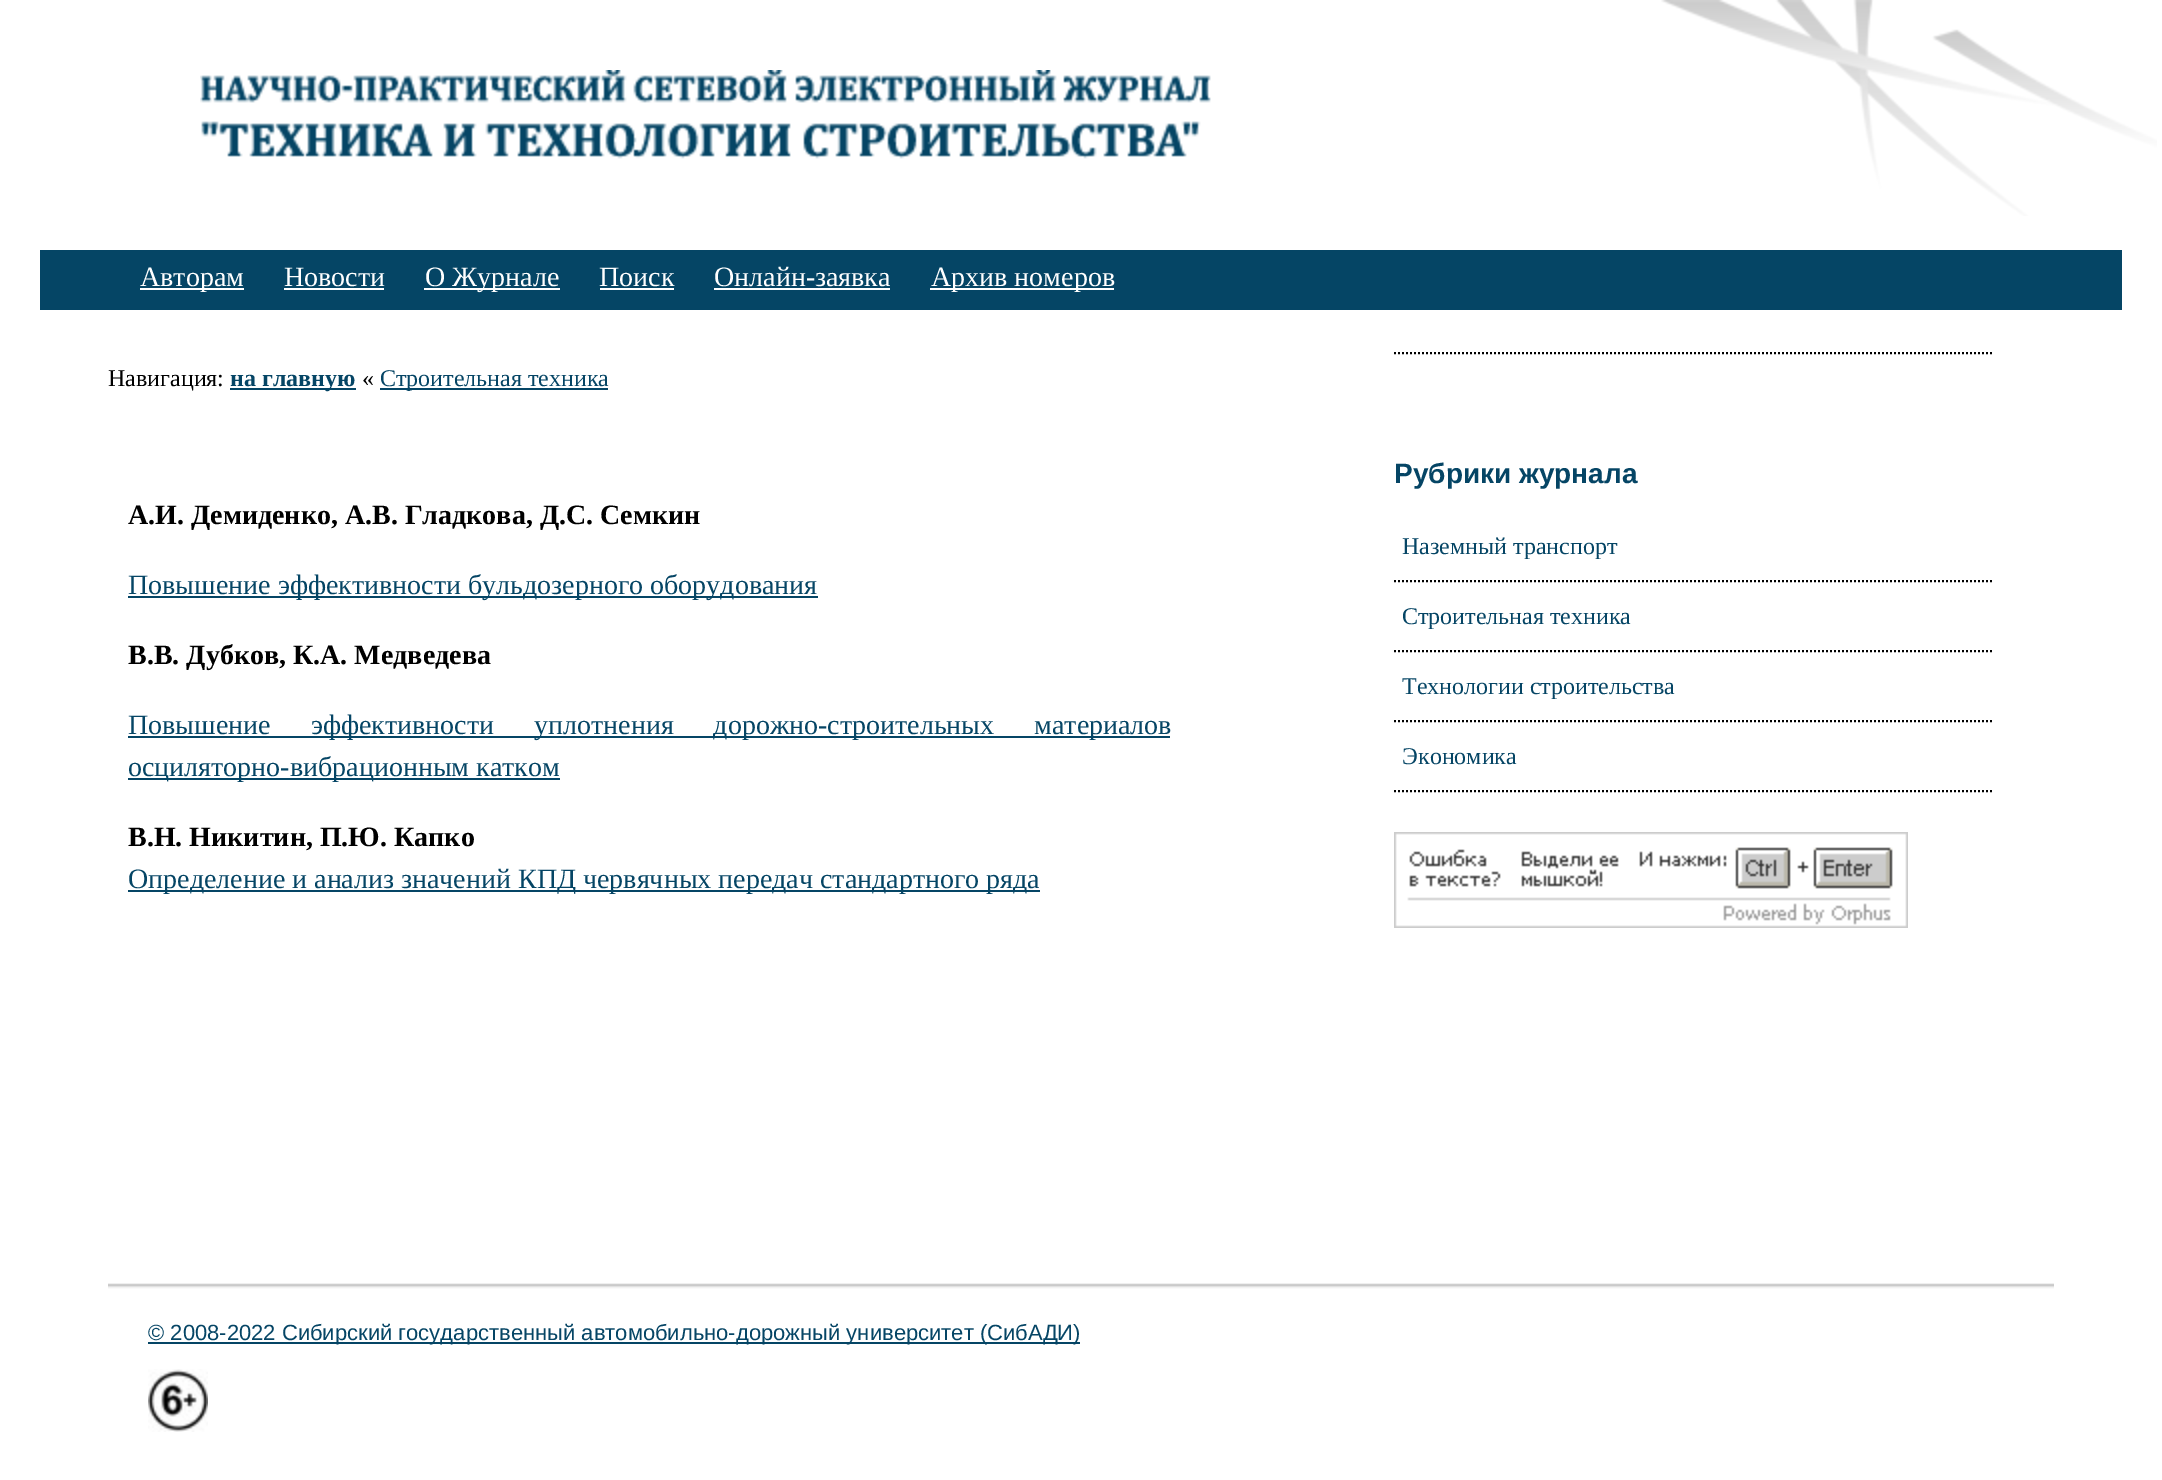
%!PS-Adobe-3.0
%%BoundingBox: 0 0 2162 1480
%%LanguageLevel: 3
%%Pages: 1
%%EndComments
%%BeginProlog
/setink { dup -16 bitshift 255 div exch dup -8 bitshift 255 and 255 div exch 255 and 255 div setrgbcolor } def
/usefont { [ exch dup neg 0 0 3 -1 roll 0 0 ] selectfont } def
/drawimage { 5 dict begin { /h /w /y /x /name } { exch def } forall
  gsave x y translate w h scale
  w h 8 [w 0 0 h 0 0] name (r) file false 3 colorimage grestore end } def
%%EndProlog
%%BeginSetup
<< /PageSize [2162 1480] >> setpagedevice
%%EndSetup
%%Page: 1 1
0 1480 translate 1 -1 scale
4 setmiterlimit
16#FFFFFF setink
0 0 2162 1480 rectfill
(img1.raw) 200 70 1011 89 drawimage
(img2.raw) 1661 0 496 216 drawimage
16#054565 setink
40 250 2082 60 rectfill
16#FFFFFF setink
140 288 104 2 rectfill
/LiberationSerif-Regular 28 usefont
140 286 moveto (Авторам) show
284 286 moveto (Новости) show
284 288 100 2 rectfill
424 288 136 2 rectfill
425 286 moveto (О Журнале) show
599 286 moveto (Поиск) show
600 288 74 2 rectfill
714 286 moveto (Онлайн-заявка) show
714 288 176 2 rectfill
930 288 184 2 rectfill
931 286 moveto (Архив номеров) show
/LiberationSerif-Regular 24 usefont
16#000000 setink
108 386 moveto (Навигация:) show
16#054565 setink
230 388 126 2 rectfill
/LiberationSerif-Bold 24 usefont
230 386 moveto (на главную) show
/LiberationSerif-Regular 24 usefont
16#000000 setink
362 386 moveto («) show
16#054565 setink
380 388 228 2 rectfill
380 386 moveto (Строительная техника) show
/LiberationSerif-Bold 28 usefont
16#000000 setink
128 524 moveto (А.И. Демиденко, А.В. Гладкова, Д.С. Семкин) show
16#054565 setink
128 596 690 2 rectfill
/LiberationSerif-Regular 28 usefont
128 594 moveto (Повышение эффективности бульдозерного оборудования) show
/LiberationSerif-Bold 28 usefont
16#000000 setink
128 664 moveto (В.В. Дубков, К.А. Медведева) show
16#054565 setink
128 736 1042 2 rectfill
/LiberationSerif-Regular 28 usefont
128 734 moveto 33 0 32 (Повышение эффективности уплотнения дорожно-строительных материалов) widthshow
128 778 432 2 rectfill
128 776 moveto (осциляторно-вибрационным катком) show
/LiberationSerif-Bold 28 usefont
16#000000 setink
128 846 moveto (В.Н. Никитин, П.Ю. Капко) show
16#054565 setink
128 890 912 2 rectfill
/LiberationSerif-Regular 28 usefont
128 888 moveto (Определение и анализ значений КПД червячных передач стандартного ряда) show
16#000000 setink
2 setlinewidth
[2 2] 0 setdash
1394 353 moveto 1994 353 lineto stroke
/LiberationSans-Bold 28 usefont
16#054565 setink
1394 483 moveto (Рубрики журнала) show
16#000000 setink
1394 581 moveto 1994 581 lineto stroke
/LiberationSerif-Regular 24 usefont
16#054565 setink
1402 554 moveto (Наземный транспорт) show
16#000000 setink
1394 651 moveto 1994 651 lineto stroke
16#054565 setink
1402 624 moveto (Строительная техника) show
16#000000 setink
1394 721 moveto 1994 721 lineto stroke
16#054565 setink
1402 694 moveto (Технологии строительства) show
16#000000 setink
1394 791 moveto 1994 791 lineto stroke
16#054565 setink
1402 764 moveto (Экономика) show
(img3.raw) 1394 832 514 96 drawimage
(img4.raw) 108 1283 1946 6 drawimage
148 1342 932 2 rectfill
/LiberationSans-Regular 22 usefont
148 1340 moveto (© 2008-2022 Сибирский государственный автомобильно-дорожный университет \(СибАДИ\)) show
(img5.raw) 148 1369 60 63 drawimage
showpage
%%EOF
